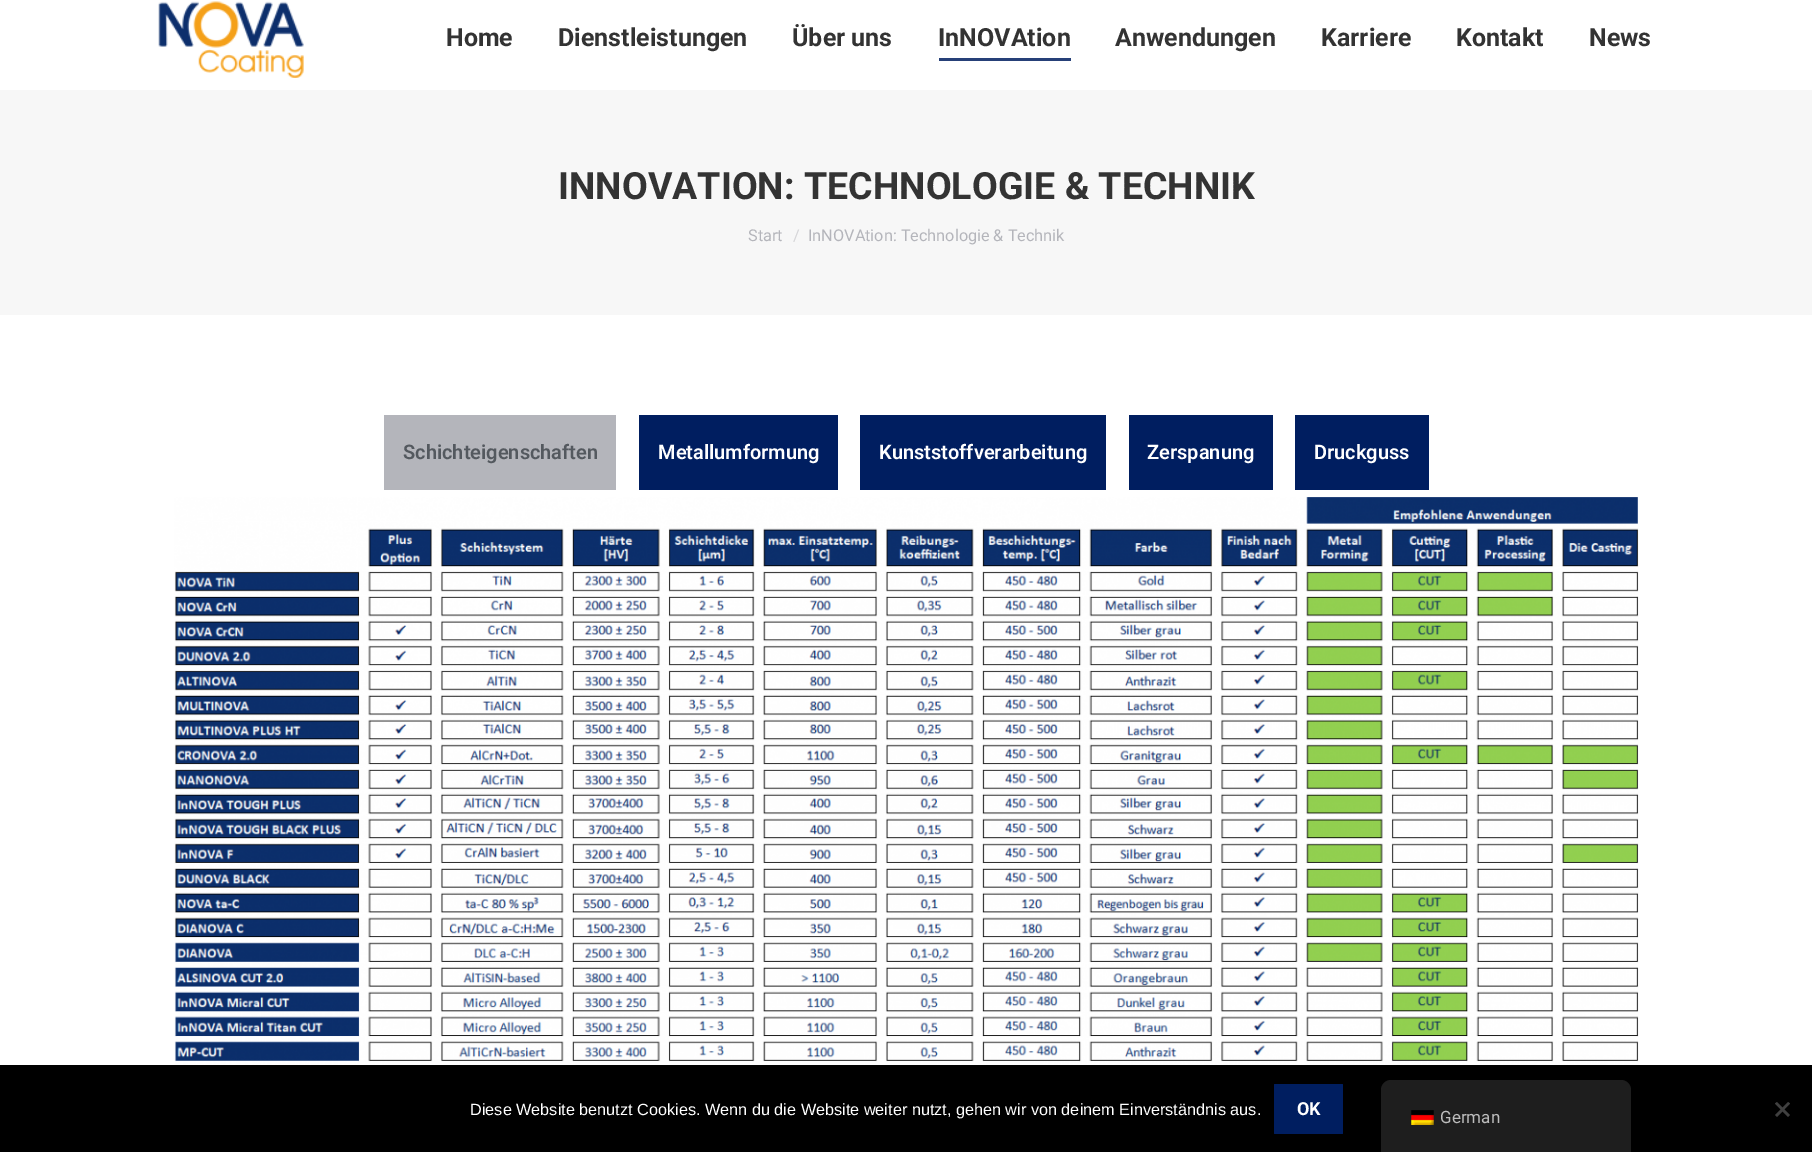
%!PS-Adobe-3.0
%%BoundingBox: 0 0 1812 1152
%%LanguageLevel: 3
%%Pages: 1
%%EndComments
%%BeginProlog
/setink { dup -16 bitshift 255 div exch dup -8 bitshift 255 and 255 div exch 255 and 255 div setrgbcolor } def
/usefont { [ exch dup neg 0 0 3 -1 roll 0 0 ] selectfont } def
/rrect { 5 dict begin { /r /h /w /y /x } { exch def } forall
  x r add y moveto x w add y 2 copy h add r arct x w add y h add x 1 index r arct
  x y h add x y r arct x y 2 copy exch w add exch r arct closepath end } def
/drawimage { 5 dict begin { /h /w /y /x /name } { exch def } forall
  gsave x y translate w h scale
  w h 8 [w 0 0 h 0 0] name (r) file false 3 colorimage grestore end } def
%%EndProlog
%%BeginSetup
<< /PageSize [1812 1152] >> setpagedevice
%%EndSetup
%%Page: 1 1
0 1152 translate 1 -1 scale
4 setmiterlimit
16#FFFFFF setink
0 0 1812 1152 rectfill
(img1.raw) 158 1 146 77 drawimage
/Roboto-Bold 25 usefont
16#333333 setink
[
    [(Home) 446 46]
    [(Dienstleistungen) 558 46]
    [(Über uns) 792 46]
    [(InNOVAtion) 938 46]
] { aload pop moveto show } forall
16#264078 setink
939 58 132 3 rectfill
16#333333 setink
[
    [(Anwendungen) 1115 46]
    [(Karriere) 1321 46]
    [(Kontakt) 1456 46]
    [(News) 1589 46]
] { aload pop moveto show } forall
16#F7F7F7 setink
0 90 1812 225 rectfill
/Roboto-Bold 37.5 usefont
16#333333 setink
558 199 moveto (INNOVATION: TECHNOLOGIE & TECHNIK) show
/Roboto-Regular 16.25 usefont
16#B4B5BB setink
748 241 moveto (Start) show
16#D6D6D9 setink
793 241 moveto (/) show
16#B4B5BB setink
808 241 moveto (InNOVAtion: Technologie & Technik) show
384 415 232 75 rectfill
/Roboto-SemiBold 20 usefont
16#54595F setink
403 459 moveto (Schichteigenschaften) show
16#001E60 setink
639 415 199 75 rectfill
16#FFFFFF setink
658 459 moveto (Metallumformung) show
16#001E60 setink
860 415 246 75 rectfill
16#FFFFFF setink
879 459 moveto (Kunststoffverarbeitung) show
16#001E60 setink
1129 415 144 75 rectfill
16#FFFFFF setink
1147 459 moveto (Zerspanung) show
16#001E60 setink
1295 415 134 75 rectfill
16#FFFFFF setink
1314 459 moveto (Druckguss) show
(img2.raw) 174 497 1465 568 drawimage
16#000000 setink
0 1065 1812 87 rectfill
/LiberationSans-Regular 16.25 usefont
16#FFFFFF setink
470 1115 moveto (Diese Website benutzt Cookies. Wenn du die Website weiter nutzt, gehen wir von deinem Einverständnis aus.) show
16#001E60 setink
1274 1084 69 50 1 rrect fill
/Roboto-Bold 18 usefont
16#FFFFFF setink
1297 1115 moveto (OK) show
16#404040 setink
1788 1102 moveto 1790 1103.5 lineto 1777 1117 lineto 1775 1115 lineto closepath fill
1775 1103.5 moveto 1777 1102 lineto 1790 1115 lineto 1788 1117 lineto closepath fill
16#1E1E1E setink
1391 1080 moveto 1621 1080 lineto 1626.5 1080 1631 1084.5 1631 1090 curveto 1631 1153 lineto 1381 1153 lineto 1381 1090 lineto 1381 1084.5 1385.5 1080 1391 1080 curveto closepath fill
(img3.raw) 1411 1110 23 15 drawimage
/Roboto-Regular 17 usefont
16#BDBDBD setink
1440 1123 moveto (German) show
showpage
%%EOF
